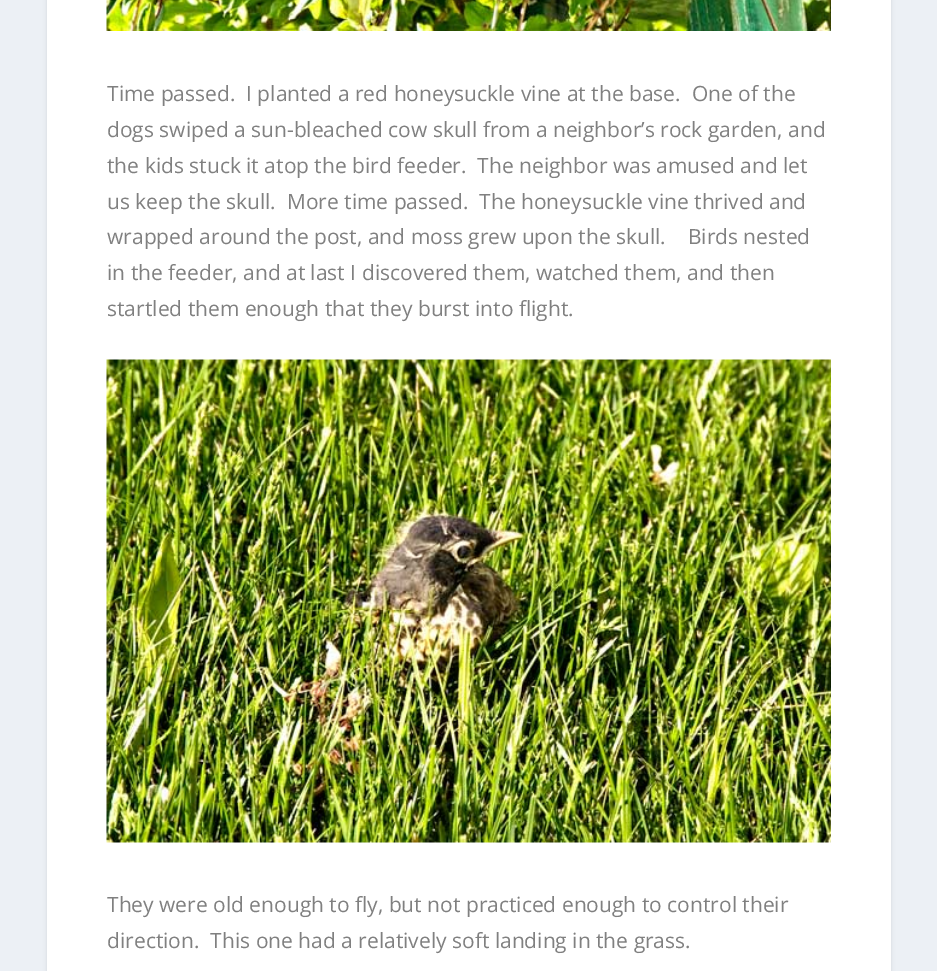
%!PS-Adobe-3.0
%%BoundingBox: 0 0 937 971
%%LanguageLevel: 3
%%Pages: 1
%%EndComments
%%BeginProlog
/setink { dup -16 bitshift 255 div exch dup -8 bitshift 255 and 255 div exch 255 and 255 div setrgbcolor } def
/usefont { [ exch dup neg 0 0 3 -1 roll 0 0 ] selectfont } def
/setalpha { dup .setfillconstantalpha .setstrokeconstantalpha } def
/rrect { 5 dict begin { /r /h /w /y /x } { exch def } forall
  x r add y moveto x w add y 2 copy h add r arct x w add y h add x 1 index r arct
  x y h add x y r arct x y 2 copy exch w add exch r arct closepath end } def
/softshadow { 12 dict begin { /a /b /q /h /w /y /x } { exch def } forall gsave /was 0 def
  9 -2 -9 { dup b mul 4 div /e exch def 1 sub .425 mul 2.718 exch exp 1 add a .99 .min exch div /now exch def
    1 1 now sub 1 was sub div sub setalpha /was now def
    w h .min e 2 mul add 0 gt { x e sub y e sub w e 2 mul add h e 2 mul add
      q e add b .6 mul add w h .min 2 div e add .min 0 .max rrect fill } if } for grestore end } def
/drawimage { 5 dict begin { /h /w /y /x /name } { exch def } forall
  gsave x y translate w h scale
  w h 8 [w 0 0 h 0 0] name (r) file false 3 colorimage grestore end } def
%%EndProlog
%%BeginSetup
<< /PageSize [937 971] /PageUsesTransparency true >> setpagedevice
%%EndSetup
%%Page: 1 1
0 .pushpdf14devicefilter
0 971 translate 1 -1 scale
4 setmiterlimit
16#ECF0F5 setink
0 0 937 971 rectfill
16#000000 setink
47 -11 844 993 5 2 0.1 softshadow
16#FFFFFF setink
47 0 844 971 rectfill
(img1.raw) 106 0 725 31 drawimage
/OpenSans-Regular 21 usefont
16#808080 setink
[
    [(Time passed.  I planted a red honeysuckle vine at the base.  One of the) 107 101]
    [(dogs swiped a sun-bleached cow skull from a neighbor’s rock garden, and) 107 137]
    [(the kids stuck it atop the bird feeder.  The neighbor was amused and let) 107 173]
    [(us keep the skull.  More time passed.  The honeysuckle vine thrived and) 107 209]
    [(wrapped around the post, and moss grew upon the skull.    Birds nested) 107 244]
    [(in the feeder, and at last I discovered them, watched them, and then) 107 280]
    [(startled them enough that they burst into flight.) 107 316]
] { aload pop moveto show } forall
(img2.raw) 106 359 725 484 drawimage
107 912 moveto (They were old enough to fly, but not practiced enough to control their) show
107 948 moveto (direction.  This one had a relatively soft landing in the grass.) show
.poppdf14devicefilter showpage
%%EOF
